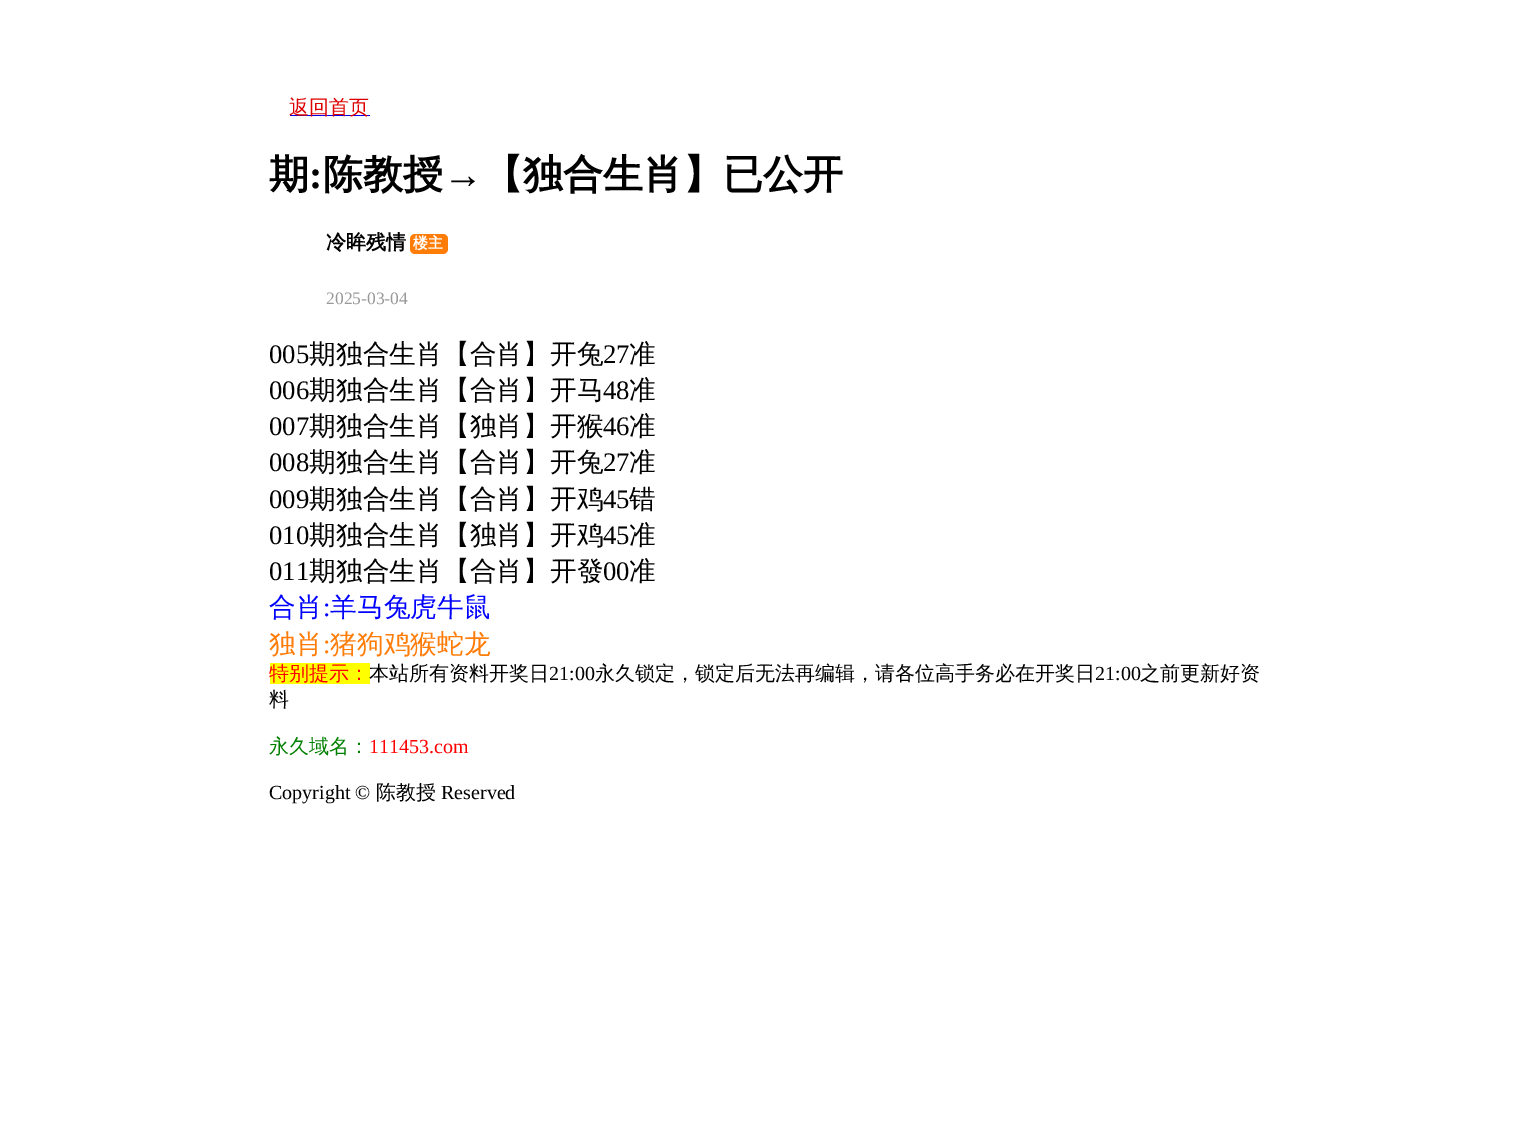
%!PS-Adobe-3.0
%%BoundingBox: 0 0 1538 1142
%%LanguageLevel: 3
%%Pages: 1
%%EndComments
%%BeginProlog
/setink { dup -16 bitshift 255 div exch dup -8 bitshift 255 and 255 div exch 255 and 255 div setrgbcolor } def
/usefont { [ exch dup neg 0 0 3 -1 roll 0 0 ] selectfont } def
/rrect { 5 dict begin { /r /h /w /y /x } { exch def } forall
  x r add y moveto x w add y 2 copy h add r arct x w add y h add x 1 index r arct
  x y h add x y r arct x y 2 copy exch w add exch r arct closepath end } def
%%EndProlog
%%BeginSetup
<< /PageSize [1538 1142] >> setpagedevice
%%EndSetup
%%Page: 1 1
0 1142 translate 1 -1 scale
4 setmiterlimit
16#FFFFFF setink
0 0 1538 1142 rectfill
16#0000EE setink
290 115 80 1 rectfill
/WenQuanYiZenHei-Medium 20 usefont
16#DE0000 setink
289 114 moveto (返回首页) show
/WenQuanYiZenHei-Bold 40 usefont
16#000000 setink
269 188 moveto (期) show
/LiberationSerif-Bold 40 usefont
309 188 moveto (:) show
/WenQuanYiZenHei-Bold 40 usefont
323 188 moveto (陈教授) show
/LiberationSerif-Bold 40 usefont
443 188 moveto (→) show
/WenQuanYiZenHei-Bold 40 usefont
483 188 moveto (【独合生肖】已公开) show
/WenQuanYiZenHei-Bold 20 usefont
326 249 moveto (冷眸残情) show
16#FF7C07 setink
410 234 38 20 5 rrect fill
/WenQuanYiZenHei-Bold 15 usefont
16#FFFFFF setink
413 248 moveto (楼主) show
/LiberationSerif-Regular 17.5 usefont
16#999999 setink
326 304 moveto (2025-03-04) show
/LiberationSerif-Regular 26.75 usefont
16#000000 setink
269 363 moveto (005) show
/WenQuanYiZenHei-Medium 26.75 usefont
309 363 moveto (期独合生肖【合肖】开兔) show
/LiberationSerif-Regular 26.75 usefont
603 363 moveto (27) show
/WenQuanYiZenHei-Medium 26.75 usefont
629 363 moveto (准) show
/LiberationSerif-Regular 26.75 usefont
269 399 moveto (006) show
/WenQuanYiZenHei-Medium 26.75 usefont
309 399 moveto (期独合生肖【合肖】开马) show
/LiberationSerif-Regular 26.75 usefont
603 399 moveto (48) show
/WenQuanYiZenHei-Medium 26.75 usefont
629 399 moveto (准) show
/LiberationSerif-Regular 26.75 usefont
269 435 moveto (007) show
/WenQuanYiZenHei-Medium 26.75 usefont
309 435 moveto (期独合生肖【独肖】开猴) show
/LiberationSerif-Regular 26.75 usefont
603 435 moveto (46) show
/WenQuanYiZenHei-Medium 26.75 usefont
629 435 moveto (准) show
/LiberationSerif-Regular 26.75 usefont
269 471 moveto (008) show
/WenQuanYiZenHei-Medium 26.75 usefont
309 471 moveto (期独合生肖【合肖】开兔) show
/LiberationSerif-Regular 26.75 usefont
603 471 moveto (27) show
/WenQuanYiZenHei-Medium 26.75 usefont
629 471 moveto (准) show
/LiberationSerif-Regular 26.75 usefont
269 508 moveto (009) show
/WenQuanYiZenHei-Medium 26.75 usefont
309 508 moveto (期独合生肖【合肖】开鸡) show
/LiberationSerif-Regular 26.75 usefont
603 508 moveto (45) show
/WenQuanYiZenHei-Medium 26.75 usefont
629 508 moveto (错) show
/LiberationSerif-Regular 26.75 usefont
269 544 moveto (010) show
/WenQuanYiZenHei-Medium 26.75 usefont
309 544 moveto (期独合生肖【独肖】开鸡) show
/LiberationSerif-Regular 26.75 usefont
603 544 moveto (45) show
/WenQuanYiZenHei-Medium 26.75 usefont
629 544 moveto (准) show
/LiberationSerif-Regular 26.75 usefont
269 580 moveto (011) show
/WenQuanYiZenHei-Medium 26.75 usefont
309 580 moveto (期独合生肖【合肖】开發) show
/LiberationSerif-Regular 26.75 usefont
603 580 moveto (00) show
/WenQuanYiZenHei-Medium 26.75 usefont
629 580 moveto (准) show
16#0000FF setink
269 616 moveto (合肖) show
/LiberationSerif-Regular 26.75 usefont
323 616 moveto (:) show
/WenQuanYiZenHei-Medium 26.75 usefont
330 616 moveto (羊马兔虎牛鼠) show
16#FF7C07 setink
269 653 moveto (独肖) show
/LiberationSerif-Regular 26.75 usefont
323 653 moveto (:) show
/WenQuanYiZenHei-Medium 26.75 usefont
330 653 moveto (猪狗鸡猴蛇龙) show
16#FFFF00 setink
270 663 100 21 rectfill
/WenQuanYiZenHei-Medium 20 usefont
16#FF0000 setink
269 680 moveto (特别提示：) show
16#000000 setink
369 680 moveto (本站所有资料开奖日) show
/LiberationSerif-Regular 20 usefont
549 680 moveto (21:00) show
/WenQuanYiZenHei-Medium 20 usefont
595 680 moveto (永久锁定，锁定后无法再编辑，请各位高手务必在开奖日) show
/LiberationSerif-Regular 20 usefont
1095 680 moveto (21:00) show
/WenQuanYiZenHei-Medium 20 usefont
1140 680 moveto (之前更新好资) show
269 706 moveto (料) show
16#008000 setink
269 753 moveto (永久域名：) show
/LiberationSerif-Regular 20 usefont
16#FF0000 setink
369 753 moveto (111453.com) show
16#000000 setink
269 799 moveto (Copyright ©) show
/WenQuanYiZenHei-Medium 20 usefont
376 799 moveto (陈教授) show
/LiberationSerif-Regular 20 usefont
441 799 moveto (Reserved) show
showpage
%%EOF
